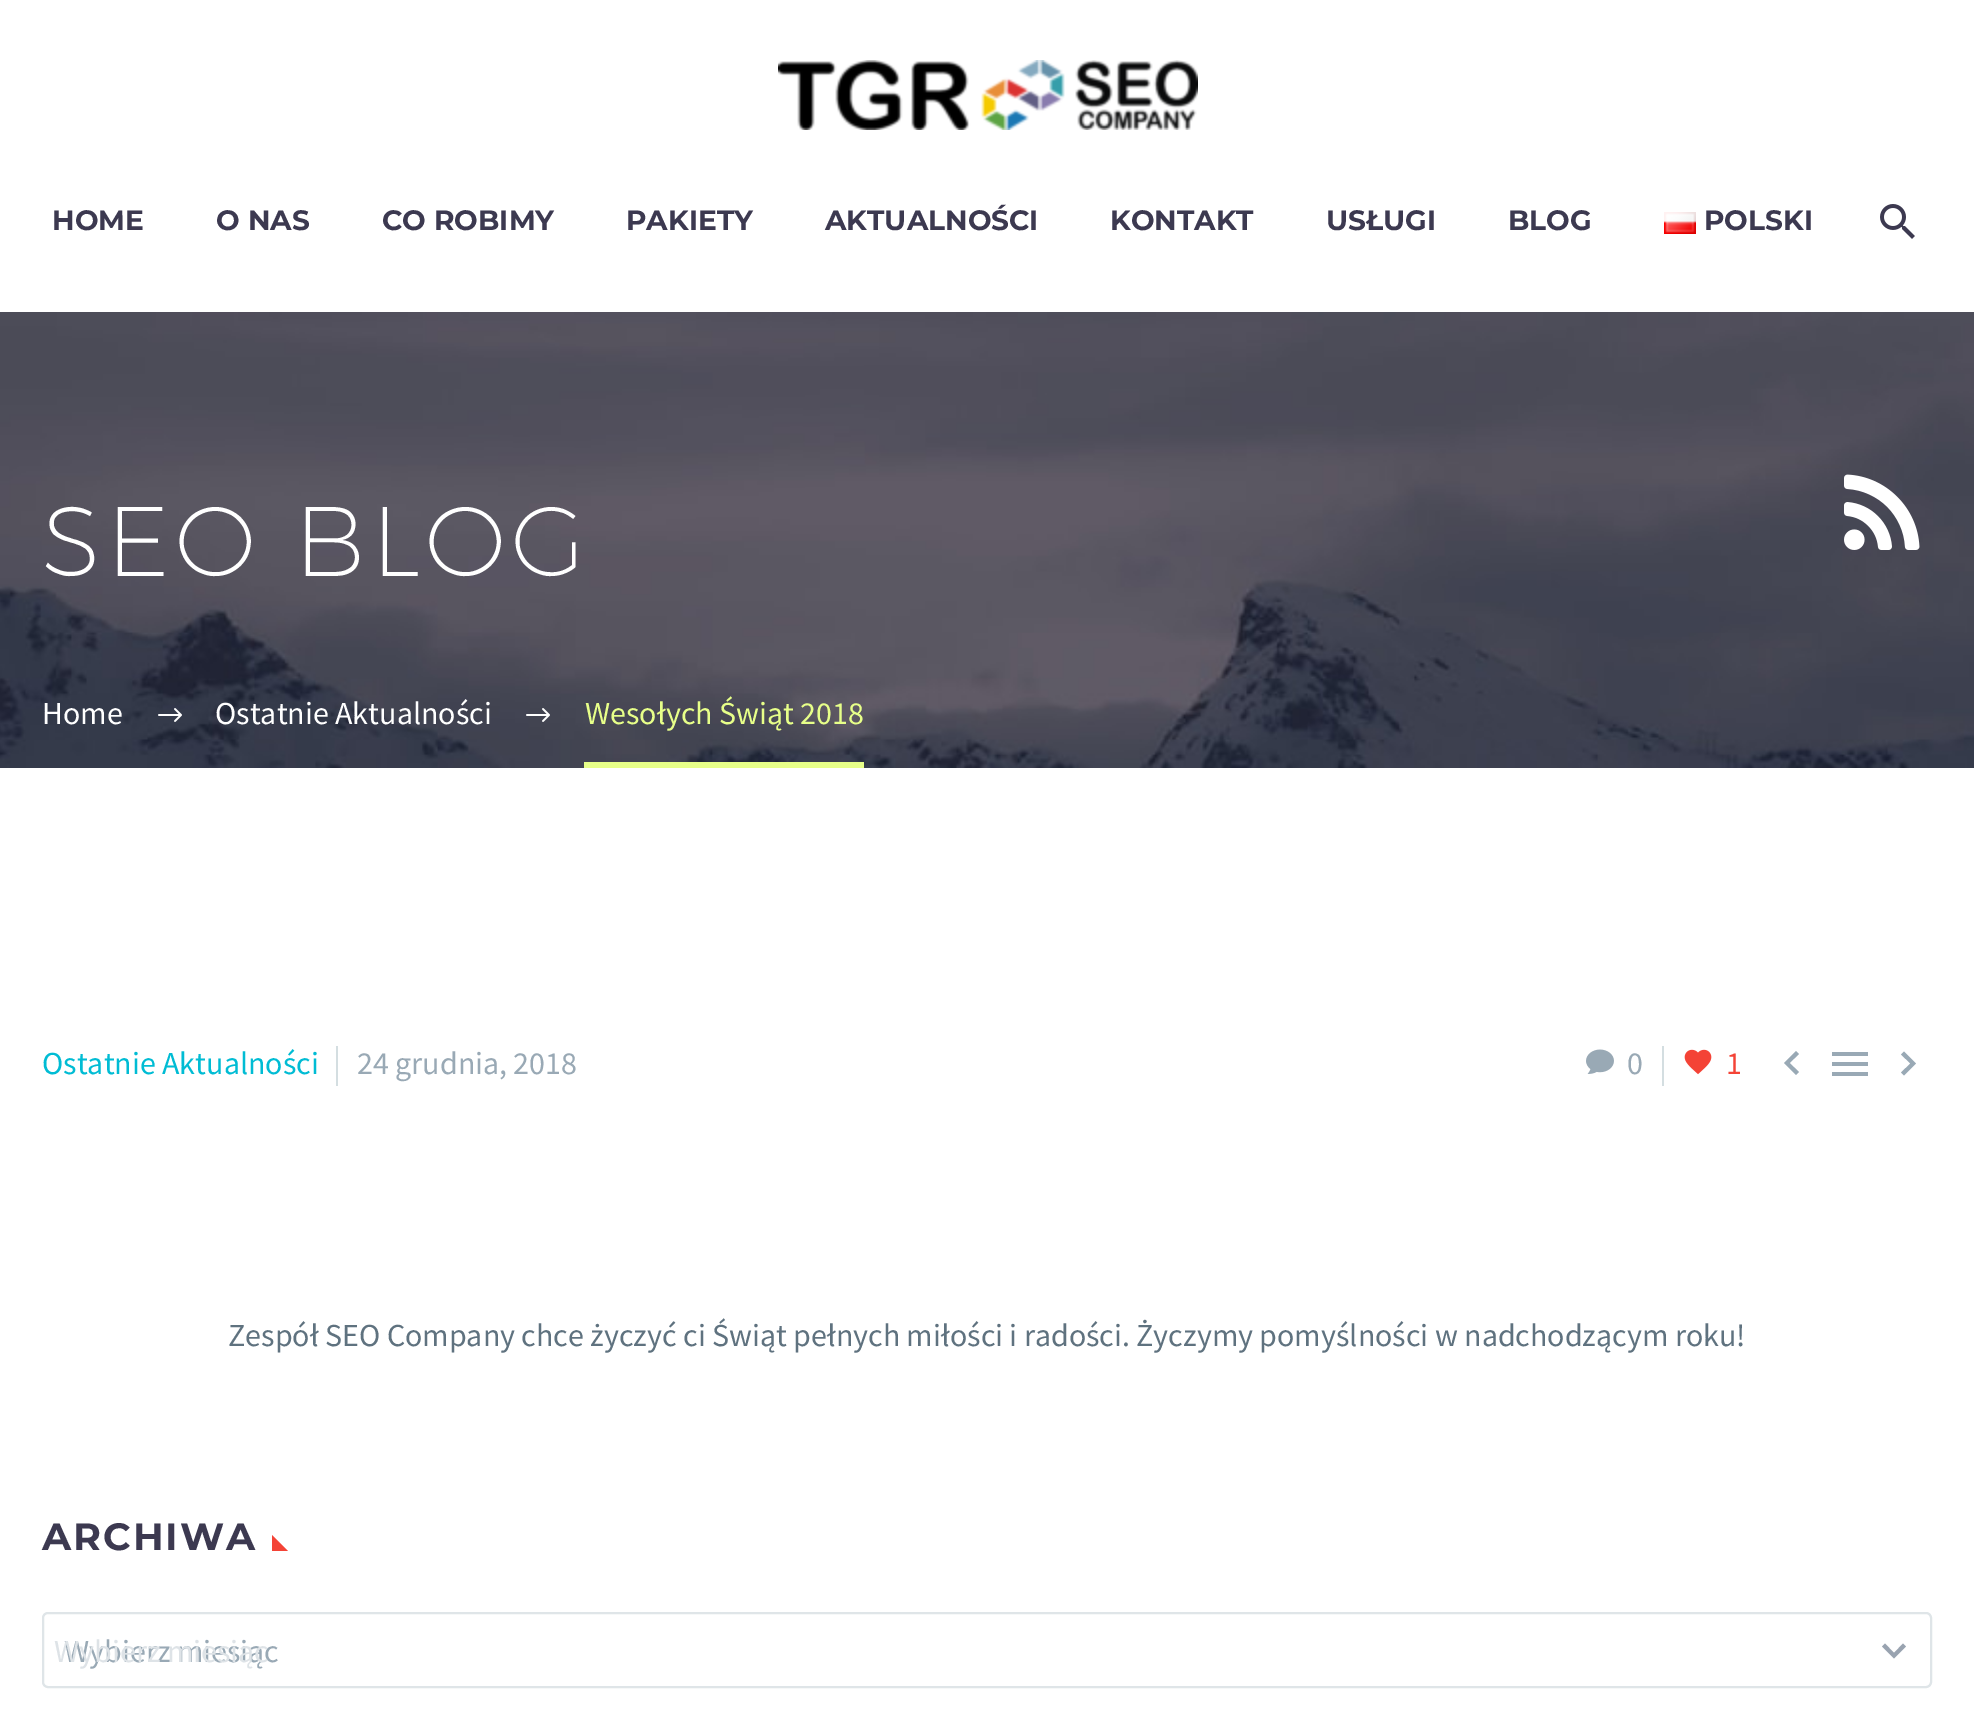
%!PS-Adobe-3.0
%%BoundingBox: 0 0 1974 1725
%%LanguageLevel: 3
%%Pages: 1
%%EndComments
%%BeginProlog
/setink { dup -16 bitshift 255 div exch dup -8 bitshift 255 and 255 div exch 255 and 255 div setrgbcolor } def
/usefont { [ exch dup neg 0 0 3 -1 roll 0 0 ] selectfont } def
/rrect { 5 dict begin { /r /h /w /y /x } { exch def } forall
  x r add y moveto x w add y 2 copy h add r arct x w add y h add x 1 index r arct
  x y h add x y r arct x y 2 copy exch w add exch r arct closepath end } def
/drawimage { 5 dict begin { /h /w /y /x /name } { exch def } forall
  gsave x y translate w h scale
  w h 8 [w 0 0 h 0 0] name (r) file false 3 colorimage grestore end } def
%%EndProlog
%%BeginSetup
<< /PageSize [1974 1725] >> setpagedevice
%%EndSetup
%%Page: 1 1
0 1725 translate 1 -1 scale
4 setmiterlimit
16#FFFFFF setink
0 0 1974 1725 rectfill
(img1.raw) 778 60 420 70 drawimage
/Montserrat-Bold 28 usefont
16#3C3950 setink
[
    [(HOME) 52 230]
    [(O NAS) 216 230]
    [(CO ROBIMY) 382 230]
    [(PAKIETY) 626 230]
    [(AKTUALNOŚCI) 825 230]
    [(KONTAKT) 1110 230]
    [(USŁUGI) 1326 230]
    [(BLOG) 1508 230]
] { aload pop moveto show } forall
(img2.raw) 1664 212 32 22 drawimage
1704 230 moveto (POLSKI) show
(img3.raw) 1880 204 35 35 drawimage
(img4.raw) 0 312 1974 456 drawimage
/Montserrat-ExtraLight 98.75 usefont
16#FFFFFF setink
42 576 moveto 5 0 (SEO BLOG) ashow
(img5.raw) 1844 474 38 76 drawimage
(img6.raw) 1882 485 38 65 drawimage
/SourceSansPro-Regular 32 usefont
42 724 moveto (Home) show
(img7.raw) 158 708 24 14 drawimage
215 724 moveto (Ostatnie Aktualności) show
(img8.raw) 526 708 24 14 drawimage
16#E7FF89 setink
584 762 280 6 rectfill
585 724 moveto (Wesołych Świąt 2018) show
16#00BCD4 setink
42 1074 moveto (Ostatnie Aktualności) show
16#D4DEE1 setink
336 1046 2 40 rectfill
16#99A9B5 setink
357 1074 moveto (24 grudnia, 2018) show
(img9.raw) 1586 1049 28 25 drawimage
1627 1074 moveto (0) show
16#D4DEE1 setink
1662 1046 2 40 rectfill
(img10.raw) 1684 1049 28 26 drawimage
16#F44336 setink
1726 1074 moveto (1) show
16#99A9B5 setink
1799 1072 moveto 1789.5 1063 lineto 1799 1054 lineto 1796 1051 lineto 1784 1063 lineto 1796 1075 lineto closepath fill
1832 1076 moveto 1868 1076 lineto 1868 1072 lineto 1832 1072 lineto closepath 1832 1066 moveto 1868 1066 lineto 1868 1062 lineto 1832 1062 lineto closepath 1832 1052 moveto 1832 1056 lineto 1868 1056 lineto 1868 1052 lineto closepath fill
1901 1072.5 moveto 1910.5 1063.5 lineto 1901 1054.5 lineto 1904 1051.5 lineto 1916 1063.5 lineto 1904 1075.5 lineto closepath fill
16#5F727F setink
228 1346 moveto (Zespół SEO Company chce życzyć ci Świąt pełnych miłości i radości. Życzymy pomyślności w nadchodzącym roku!) show
/Montserrat-Bold 38 usefont
16#3C3950 setink
42 1550 moveto 2 0 (ARCHIWA) ashow
16#F44336 setink
272 1535 moveto 272 1551 lineto 288 1551 lineto closepath fill
16#DFE5E8 setink
2 setlinewidth
43 1613 1888 74 5 rrect stroke
/SourceSansPro-Regular 32 usefont
16#99A9B5 setink
64 1662 moveto (Wybierz miesiąc) show
16#DEE3E7 setink
54 1662 moveto (Wybierz miesiąc) show
16#99A3B0 setink
1885 1643.5 moveto 1894 1653 lineto 1903 1643.5 lineto 1906 1646.5 lineto 1894 1658.5 lineto 1882 1646.5 lineto closepath fill
showpage
%%EOF
